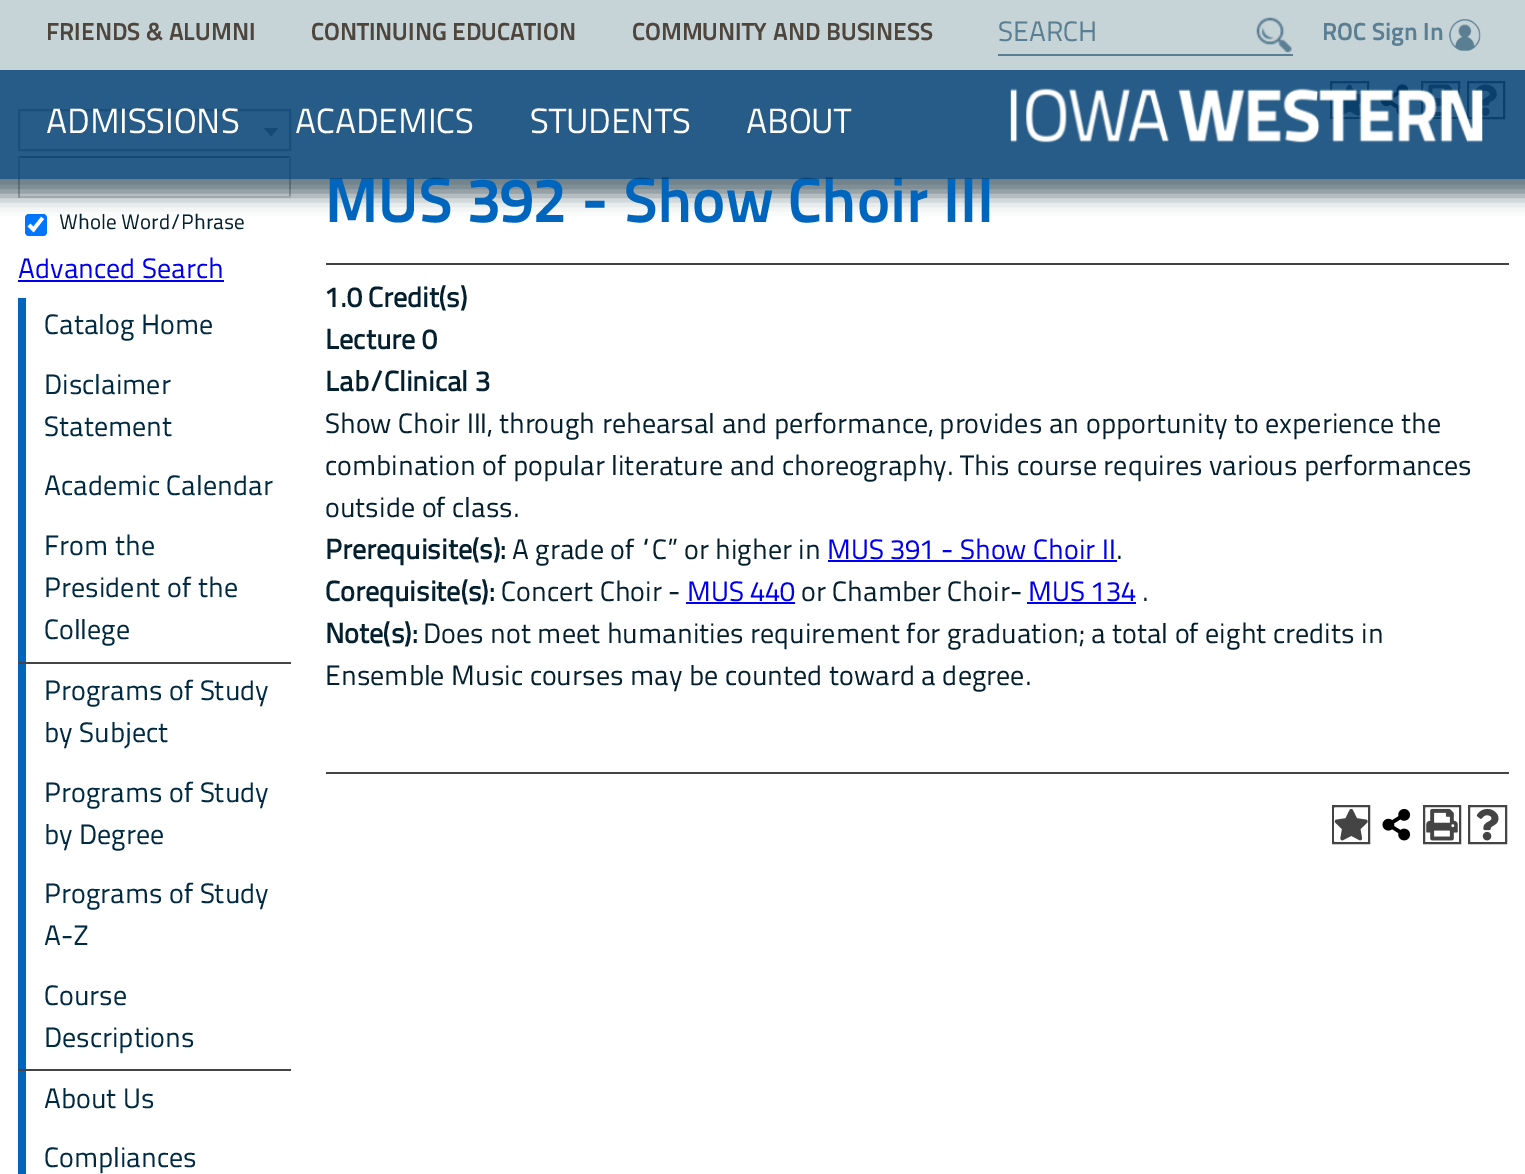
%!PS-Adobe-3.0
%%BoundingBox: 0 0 1525 1174
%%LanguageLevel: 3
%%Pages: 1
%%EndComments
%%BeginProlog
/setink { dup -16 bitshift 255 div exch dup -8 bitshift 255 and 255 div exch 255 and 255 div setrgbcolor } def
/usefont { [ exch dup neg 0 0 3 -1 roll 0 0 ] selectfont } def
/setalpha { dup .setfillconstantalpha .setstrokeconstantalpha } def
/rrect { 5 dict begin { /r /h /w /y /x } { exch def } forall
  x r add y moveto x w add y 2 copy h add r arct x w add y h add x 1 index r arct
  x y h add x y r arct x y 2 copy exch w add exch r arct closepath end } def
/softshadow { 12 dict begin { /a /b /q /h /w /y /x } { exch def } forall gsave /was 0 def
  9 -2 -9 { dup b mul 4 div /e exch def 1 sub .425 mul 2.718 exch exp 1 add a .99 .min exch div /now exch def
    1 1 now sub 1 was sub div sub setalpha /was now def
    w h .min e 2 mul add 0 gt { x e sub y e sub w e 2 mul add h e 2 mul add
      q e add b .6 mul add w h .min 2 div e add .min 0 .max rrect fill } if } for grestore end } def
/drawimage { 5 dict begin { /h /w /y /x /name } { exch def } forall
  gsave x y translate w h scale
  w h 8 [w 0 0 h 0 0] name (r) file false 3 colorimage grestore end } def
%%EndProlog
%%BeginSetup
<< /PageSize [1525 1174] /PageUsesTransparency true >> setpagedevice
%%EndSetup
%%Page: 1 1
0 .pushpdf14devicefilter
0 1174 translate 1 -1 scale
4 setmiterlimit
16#FFFFFF setink
0 0 1525 1174 rectfill
16#AAAAAA setink
2 setlinewidth
19 110 271 40 rectstroke
16#888888 setink
264 128 moveto 278 128 lineto 271 136.5 lineto closepath fill
[
    [18 156 273 2 16#848484]
    [289 156 2 42 16#C1C1C1]
    [18 196 273 2 16#E1E1E1]
    [18 156 2 42 16#C1C1C1]
] { aload pop setink rectfill } forall
16#0075FF setink
25 214 22 22 4 rrect fill
16#FFFFFF setink
3.6 setlinewidth
29 225 moveto 33.5 229.5 lineto 42.5 218 lineto stroke
16#444444 setink
2 setlinewidth
1331 82 37 36 rectstroke
(img4.raw) 1333 84 29 32 drawimage
(img5.raw) 1380 84 29 32 drawimage
1422 82 37 36 rectstroke
(img6.raw) 1424 84 31 32 drawimage
1468 82 36 36 rectstroke
(img7.raw) 1475 84 22 32 drawimage
gsave
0 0 moveto 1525 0 lineto 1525 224 lineto 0 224 lineto closepath 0 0 moveto 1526 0 lineto 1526 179 lineto 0 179 lineto closepath eoclip newpath
16#04202E setink
-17 -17 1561 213 0 9 0.6 softshadow
grestore
/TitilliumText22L-Bold 63 usefont
16#0065BD setink
325 222 moveto (MUS 392 - Show Choir III) show
0.85 setalpha
16#003F72 setink
0 70 1525 109 rectfill
1 setalpha
16#C6D3D7 setink
0 0 1525 70 rectfill
/TitilliumText22L-Bold 24.5 usefont
16#4E453C setink
[
    [(FRIENDS & ALUMNI) 46 40]
    [(CONTINUING EDUCATION) 311 40]
    [(COMMUNITY AND BUSINESS) 632 40]
] { aload pop moveto show } forall
16#5A7E92 setink
998 54 295 2 rectfill
/TitilliumText22L-Regular 28 usefont
998 41 moveto (SEARCH) show
(img1.raw) 1256 17 36 36 drawimage
/TitilliumText22L-Bold 24.5 usefont
1322 40 moveto (ROC Sign In) show
(img2.raw) 1449 19 32 32 drawimage
/TitilliumText22L-Regular 35 usefont
16#FFFFFF setink
[
    [(ADMISSIONS) 46 133]
    [(ACADEMICS) 295 133]
    [(STUDENTS) 530 133]
    [(ABOUT) 746 133]
] { aload pop moveto show } forall
(img3.raw) 1010 88 473 55 drawimage
/TitilliumText22L-Regular 21 usefont
16#04202E setink
59 229 moveto (Whole Word/Phrase) show
/TitilliumText22L-Regular 28 usefont
16#0000EE setink
18 278 moveto (Advanced Search) show
18 280 206 2 rectfill
16#0065BD setink
18 298 8 364 rectfill
16#002A42 setink
[
    [(Catalog Home) 44 334]
    [(Disclaimer) 44 394]
    [(Statement) 44 436]
    [(Academic Calendar) 44 495]
    [(From the) 44 555]
    [(President of the) 44 597]
    [(College) 44 639]
] { aload pop moveto show } forall
16#0065BD setink
18 663 8 406 rectfill
16#444444 setink
18 662 273 2 rectfill
16#002A42 setink
[
    [(Programs of Study) 44 700]
    [(by Subject) 44 742]
    [(Programs of Study) 44 802]
    [(by Degree) 44 844]
    [(Programs of Study) 44 903]
    [(A-Z) 44 945]
    [(Course) 44 1005]
    [(Descriptions) 44 1047]
] { aload pop moveto show } forall
16#444444 setink
18 1069 273 2 rectfill
16#0065BD setink
18 1071 8 103 rectfill
16#002A42 setink
44 1108 moveto (About Us) show
44 1167 moveto (Compliances) show
16#444444 setink
326 263 1183 2 rectfill
/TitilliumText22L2-Bold 28 usefont
16#04202E setink
[
    [(1.0 Credit\(s\)) 325 307]
    [(Lecture 0) 325 349]
    [(Lab/Clinical 3) 325 391]
] { aload pop moveto show } forall
/TitilliumText22L-Regular 28 usefont
[
    [(Show Choir III, through rehearsal and performance, provides an opportunity to experience the) 325 433]
    [(combination of popular literature and choreography. This course requires various performances) 325 475]
    [(outside of class.) 325 517]
] { aload pop moveto show } forall
/TitilliumText22L2-Bold 28 usefont
325 559 moveto (Prerequisite\(s\):) show
/TitilliumText22L-Regular 28 usefont
512 559 moveto (A grade of “C” or higher in) show
16#0000EE setink
827 559 moveto (MUS 391 - Show Choir II) show
828 560 289 2 rectfill
16#04202E setink
1116 559 moveto (.) show
/TitilliumText22L2-Bold 28 usefont
325 601 moveto (Corequisite\(s\):) show
/TitilliumText22L-Regular 28 usefont
501 601 moveto (Concert Choir -) show
16#0000EE setink
687 601 moveto (MUS 440) show
686 602 109 2 rectfill
16#04202E setink
801 601 moveto (or Chamber Choir-) show
16#0000EE setink
1028 601 moveto (MUS 134) show
1027 602 109 2 rectfill
16#04202E setink
1142 601 moveto (.) show
/TitilliumText22L2-Bold 28 usefont
325 643 moveto (Note\(s\):) show
/TitilliumText22L-Regular 28 usefont
423 643 moveto (Does not meet humanities requirement for graduation; a total of eight credits in) show
325 685 moveto (Ensemble Music courses may be counted toward a degree.) show
16#444444 setink
326 772 1183 2 rectfill
1333 806 36 37 rectstroke
(img8.raw) 1334 808 34 33 drawimage
(img9.raw) 1382 808 29 33 drawimage
1424 806 36 37 rectstroke
(img10.raw) 1426 808 32 33 drawimage
1469 806 37 37 rectstroke
(img11.raw) 1476 808 23 33 drawimage
.poppdf14devicefilter showpage
%%EOF
